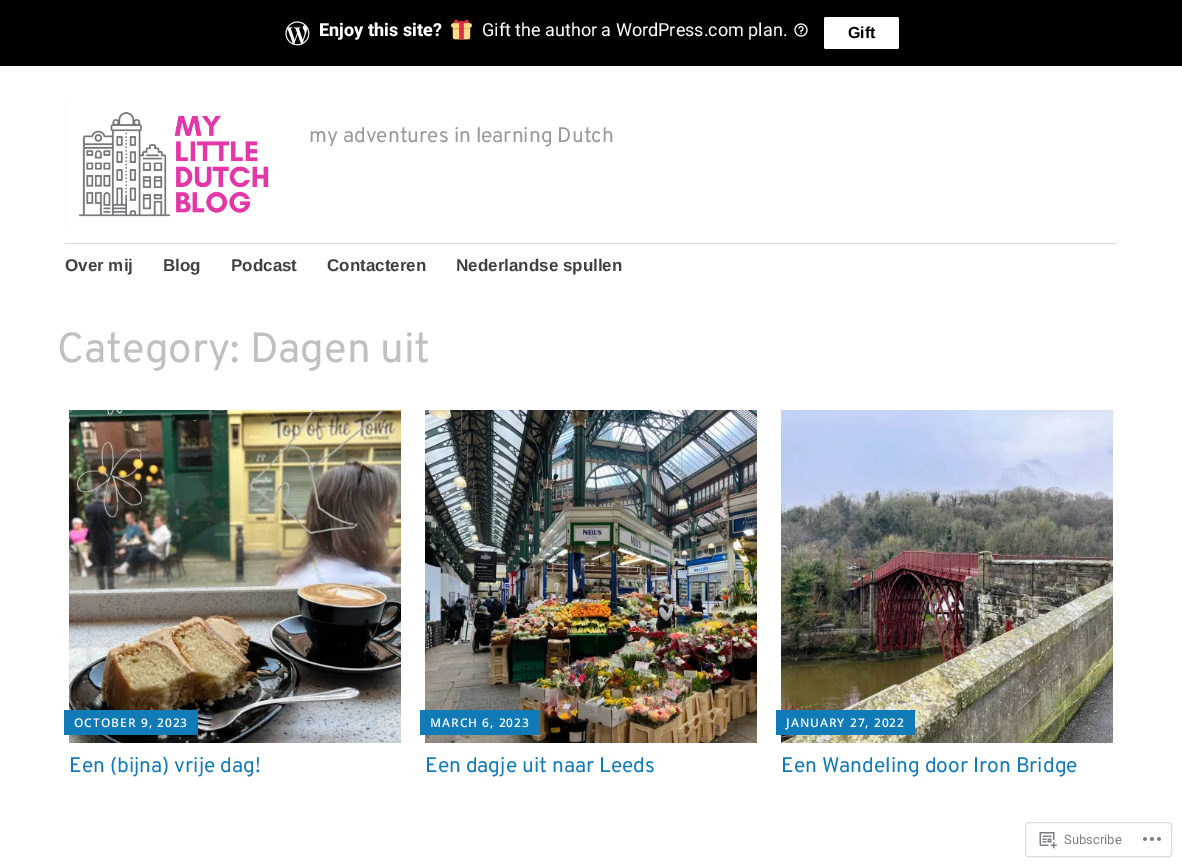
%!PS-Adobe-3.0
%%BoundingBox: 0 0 1182 867
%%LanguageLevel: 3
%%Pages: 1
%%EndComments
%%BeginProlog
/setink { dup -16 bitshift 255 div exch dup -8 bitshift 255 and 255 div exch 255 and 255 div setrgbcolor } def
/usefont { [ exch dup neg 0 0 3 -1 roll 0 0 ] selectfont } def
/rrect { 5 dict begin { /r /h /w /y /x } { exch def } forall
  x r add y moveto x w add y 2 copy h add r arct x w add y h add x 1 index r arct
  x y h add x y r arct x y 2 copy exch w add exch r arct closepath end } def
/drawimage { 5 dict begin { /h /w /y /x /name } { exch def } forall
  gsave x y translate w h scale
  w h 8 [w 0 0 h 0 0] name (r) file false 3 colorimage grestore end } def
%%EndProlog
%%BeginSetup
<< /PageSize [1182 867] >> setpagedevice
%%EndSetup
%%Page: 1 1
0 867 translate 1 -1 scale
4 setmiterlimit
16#FFFFFF setink
0 0 1182 867 rectfill
16#000000 setink
0 0 1182 66 rectfill
(img1.raw) 285 21 25 25 drawimage
/Roboto-ExtraBold 18 usefont
16#FFFFFF setink
319 36 moveto (Enjoy this site?) show
(img2.raw) 451 19 21 21 drawimage
/Roboto-Regular 18 usefont
482 36 moveto (Gift the author a WordPress.com plan.) show
(img3.raw) 794 23 14 14 drawimage
824 17 75 32 2 rrect fill
/Arimo-Bold 16 usefont
16#000000 setink
848 38 moveto (Gift) show
(img4.raw) 65 102 204 125 drawimage
/Overpass-Regular 21 usefont
16#999999 setink
309 142 moveto (my adventures in learning Dutch) show
16#D9D9D9 setink
65 243 1052 1 rectfill
/Arimo-Bold 17 usefont
16#404040 setink
[
    [(Over mij) 65 271]
    [(Blog) 163 271]
    [(Podcast) 231 271]
    [(Contacteren) 327 271]
    [(Nederlandse spullen) 456 271]
] { aload pop moveto show } forall
/Overpass-Regular 42 usefont
16#C0C0C0 setink
57 362 moveto (Category: Dagen uit) show
(img5.raw) 69 410 332 333 drawimage
16#117BB8 setink
64 710 134 25 rectfill
/OpenSans-SemiBold 12 usefont
16#FFFFFF setink
74 727 moveto 1 0 (OCTOBER 9, 2023) ashow
/Overpass-Regular 21 usefont
16#117BB8 setink
69 772 moveto (Een \(bijna\) vrije dag!) show
(img6.raw) 425 410 332 333 drawimage
420 710 120 25 rectfill
/OpenSans-SemiBold 12 usefont
16#FFFFFF setink
430 727 moveto 1 0 (MARCH 6, 2023) ashow
/Overpass-Regular 21 usefont
16#117BB8 setink
425 772 moveto (Een dagje uit naar Leeds) show
(img7.raw) 781 410 332 333 drawimage
776 710 139 25 rectfill
/OpenSans-SemiBold 12 usefont
16#FFFFFF setink
786 727 moveto 1 0 (JANUARY 27, 2022) ashow
/Overpass-Regular 21 usefont
16#117BB8 setink
781 772 moveto (Een Wandeling door Iron Bridge) show
16#DDDDDF setink
1025.5 822.5 146 34 2.5 rrect stroke
(img8.raw) 1039 832 18 17 drawimage
/Roboto-Regular 13 usefont
16#7B7F85 setink
1064 844 moveto (Subscribe) show
(img9.raw) 1143 837 18 4 drawimage
showpage
%%EOF
